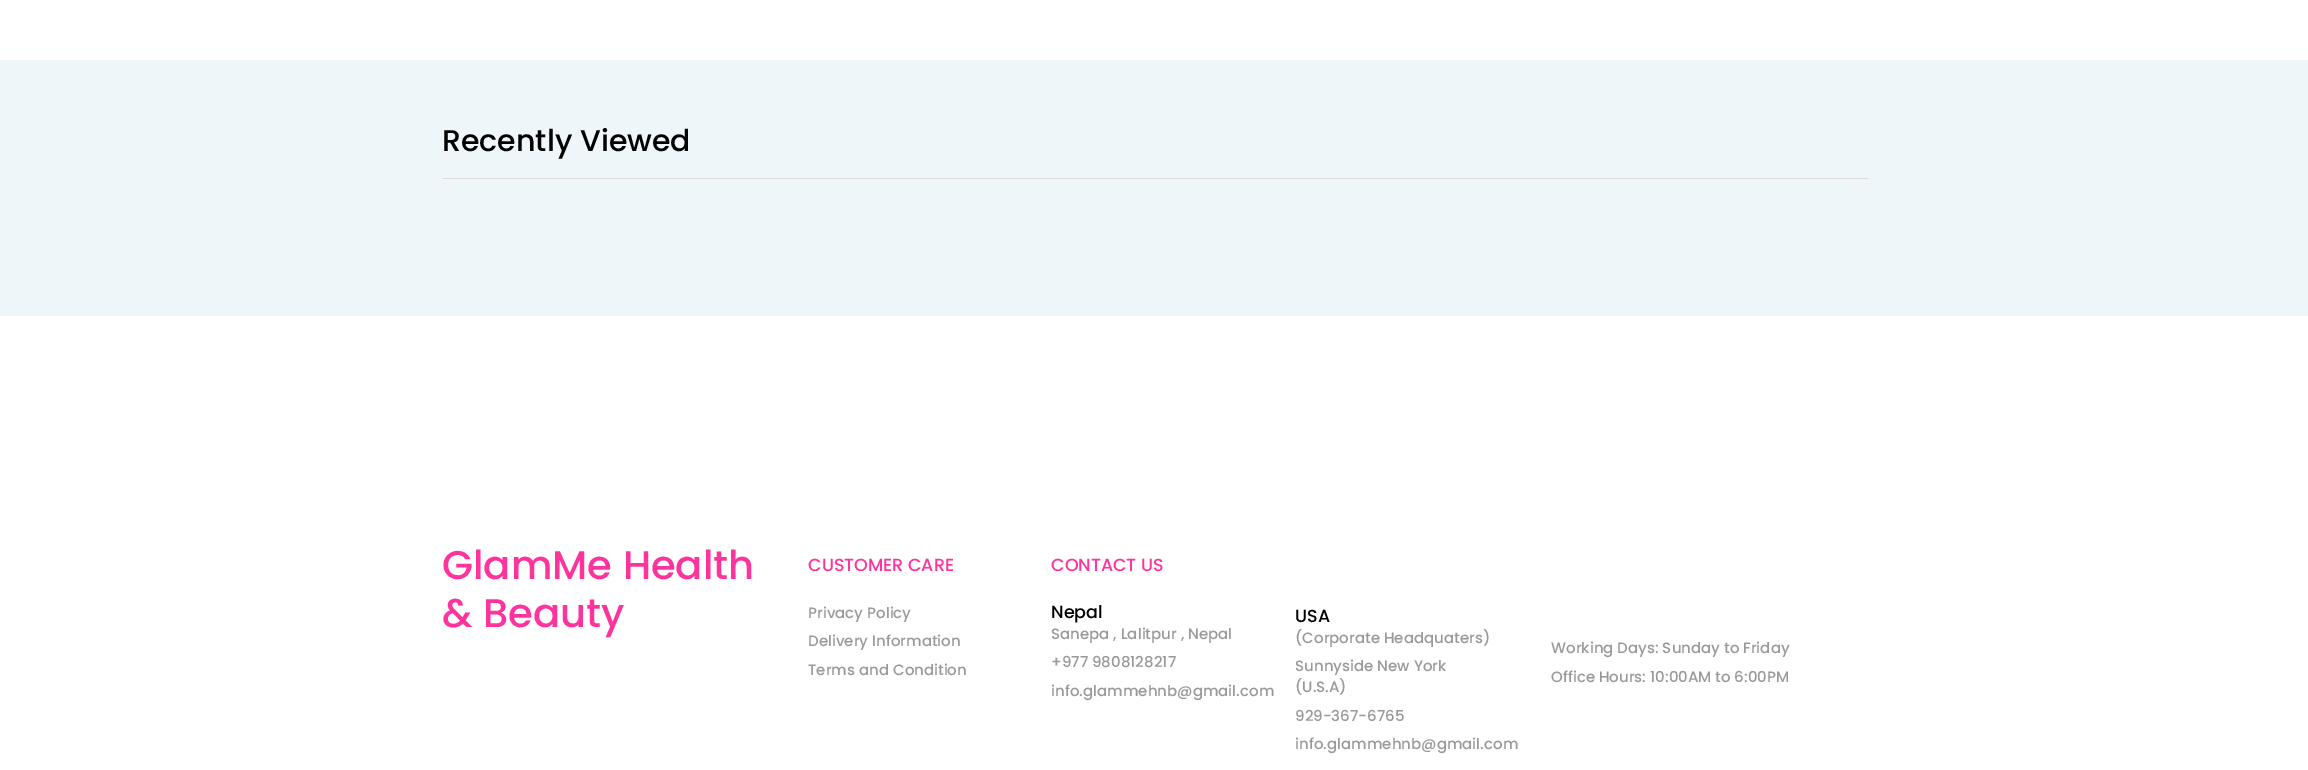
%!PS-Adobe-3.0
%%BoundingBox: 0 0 2308 770
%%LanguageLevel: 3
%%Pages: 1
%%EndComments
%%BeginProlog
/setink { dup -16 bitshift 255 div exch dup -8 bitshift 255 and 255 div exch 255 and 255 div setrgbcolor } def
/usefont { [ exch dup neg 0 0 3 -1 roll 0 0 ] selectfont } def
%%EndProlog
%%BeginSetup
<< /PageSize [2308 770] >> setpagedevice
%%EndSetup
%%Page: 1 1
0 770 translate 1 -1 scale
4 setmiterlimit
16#FFFFFF setink
0 0 2308 770 rectfill
16#EFF6FA setink
0 60 2308 256 rectfill
16#DADADA setink
443 178 1425 1 rectfill
/Poppins-Medium 30 usefont
16#000000 setink
442 151 moveto (Recently Viewed) show
/Poppins-Medium 40 usefont
16#FF339C setink
442 579 moveto (GlamMe Health) show
442 627 moveto (& Beauty) show
/Poppins-Medium 17.5 usefont
808 571 moveto (CUSTOMER CARE) show
/Poppins-Medium 15 usefont
16#999999 setink
[
    [(Privacy Policy) 808 618]
    [(Delivery Information) 808 646]
    [(Terms and Condition) 808 675]
] { aload pop moveto show } forall
/Poppins-Medium 17.5 usefont
16#FF339C setink
1051 571 moveto (CONTACT US) show
16#000000 setink
1051 618 moveto (Nepal) show
/Poppins-Medium 15 usefont
16#999999 setink
[
    [(Sanepa , Lalitpur , Nepal) 1051 639]
    [(+977 9808128217) 1051 667]
    [(info.glammehnb@gmail.com) 1051 696]
] { aload pop moveto show } forall
/Poppins-Medium 17.5 usefont
16#000000 setink
1295 622 moveto (USA) show
/Poppins-Medium 15 usefont
16#999999 setink
[
    [(\(Corporate Headquaters\)) 1295 643]
    [(Sunnyside New York) 1295 671]
    [(\(U.S.A\)) 1295 692]
    [(929-367-6765) 1295 721]
    [(info.glammehnb@gmail.com) 1295 749]
    [(Working Days: Sunday to Friday) 1551 653]
    [(Office Hours: 10:00AM to 6:00PM) 1551 682]
] { aload pop moveto show } forall
showpage
%%EOF
